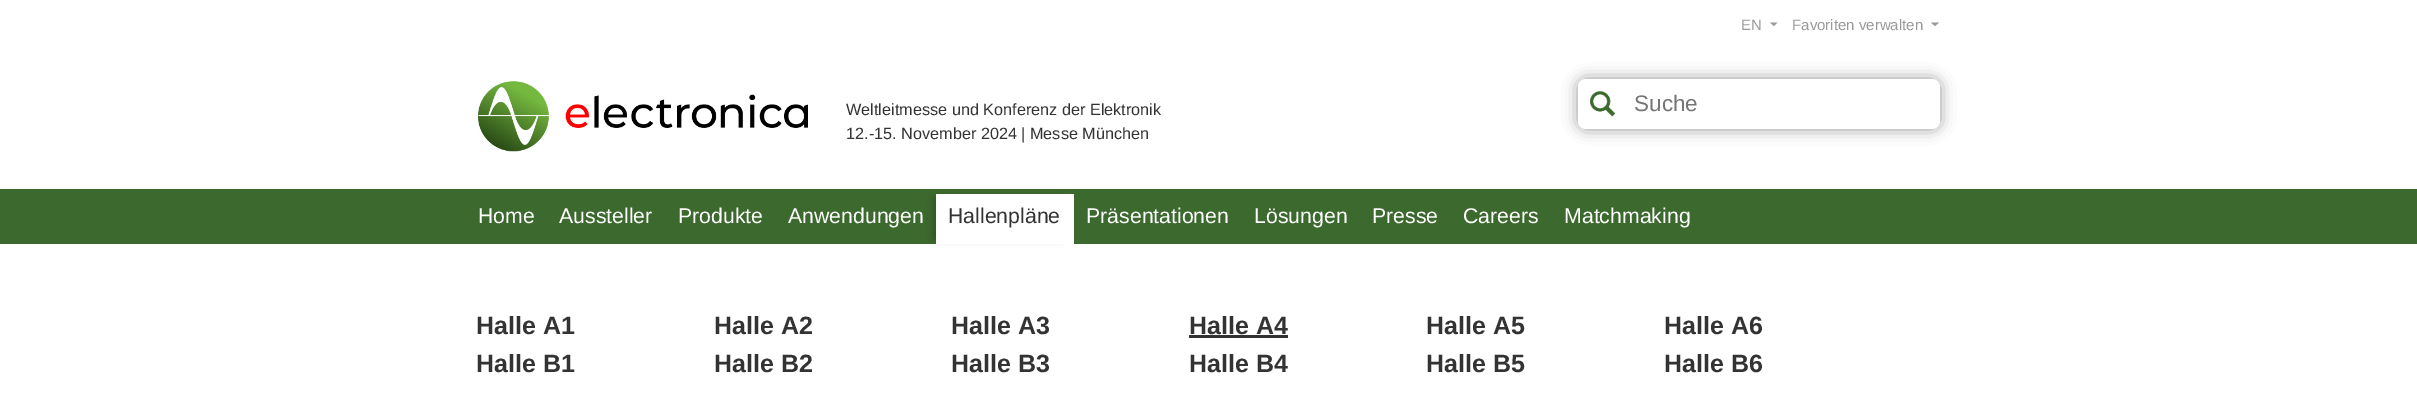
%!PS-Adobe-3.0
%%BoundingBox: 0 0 2417 396
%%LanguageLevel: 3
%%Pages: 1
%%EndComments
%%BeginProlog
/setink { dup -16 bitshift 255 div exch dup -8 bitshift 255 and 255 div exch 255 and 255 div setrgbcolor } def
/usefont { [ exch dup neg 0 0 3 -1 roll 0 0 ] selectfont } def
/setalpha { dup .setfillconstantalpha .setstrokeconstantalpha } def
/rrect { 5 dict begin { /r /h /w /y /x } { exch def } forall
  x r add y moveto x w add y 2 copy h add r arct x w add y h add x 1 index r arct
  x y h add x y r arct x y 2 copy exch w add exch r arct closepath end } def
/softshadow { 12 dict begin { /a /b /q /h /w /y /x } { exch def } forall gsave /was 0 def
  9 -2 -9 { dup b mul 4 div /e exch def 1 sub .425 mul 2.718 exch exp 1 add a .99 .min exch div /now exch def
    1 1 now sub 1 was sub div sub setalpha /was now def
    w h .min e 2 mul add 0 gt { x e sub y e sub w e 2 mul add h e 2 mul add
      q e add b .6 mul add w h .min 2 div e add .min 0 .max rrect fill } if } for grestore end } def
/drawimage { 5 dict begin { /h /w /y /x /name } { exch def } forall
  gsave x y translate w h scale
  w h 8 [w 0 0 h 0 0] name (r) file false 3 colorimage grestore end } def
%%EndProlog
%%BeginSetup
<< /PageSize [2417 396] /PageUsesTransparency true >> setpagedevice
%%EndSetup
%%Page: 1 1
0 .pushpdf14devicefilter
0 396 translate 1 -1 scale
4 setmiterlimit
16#FFFFFF setink
0 0 2417 396 rectfill
/LiberationSans-Regular 15 usefont
16#999999 setink
1741 30 moveto (EN) show
1770 22.5 moveto 1777.5 22.5 lineto 1774 26 lineto closepath fill
1792 30 moveto (Favoriten verwalten) show
1931 22.5 moveto 1939 22.5 lineto 1935 26 lineto closepath fill
(img1.raw) 478 81 330 71 drawimage
/LiberationSans-Regular 16.25 usefont
16#333333 setink
846 115 moveto (Weltleitmesse und Konferenz der Elektronik) show
846 139 moveto (12.-15. November 2024 | Messe München) show
16#000000 setink
1578 79 362 50 8 7.5 0.4 softshadow
16#FFFFFF setink
1578 79 362 50 8 rrect fill
(img2.raw) 1590 91 25 26 drawimage
/LiberationSans-Regular 22.5 usefont
16#757575 setink
1634 111 moveto (Suche) show
16#3C692D setink
0 189 2417 55 rectfill
/LiberationSans-Regular 21.25 usefont
16#FFFFFF setink
[
    [(Home) 478 223]
    [(Aussteller) 559 223]
    [(Produkte) 678 223]
    [(Anwendungen) 788 223]
] { aload pop moveto show } forall
16#000000 setink
934 199 127 40 0 4 0.25 softshadow
16#FFFFFF setink
936 194 138 50 rectfill
16#333333 setink
948 223 moveto (Hallenpläne) show
16#FFFFFF setink
[
    [(Präsentationen) 1086 223]
    [(Lösungen) 1254 223]
    [(Presse) 1372 223]
    [(Careers) 1463 223]
    [(Matchmaking) 1564 223]
] { aload pop moveto show } forall
/LiberationSans-Bold 25 usefont
16#333333 setink
[
    [(Halle A1) 476 334]
    [(Halle A2) 714 334]
    [(Halle A3) 951 334]
    [(Halle A4) 1189 334]
] { aload pop moveto show } forall
1189 335 99 3 rectfill
[
    [(Halle A5) 1426 334]
    [(Halle A6) 1664 334]
    [(Halle B1) 476 372]
    [(Halle B2) 714 372]
    [(Halle B3) 951 372]
    [(Halle B4) 1189 372]
    [(Halle B5) 1426 372]
    [(Halle B6) 1664 372]
] { aload pop moveto show } forall
.poppdf14devicefilter showpage
%%EOF
